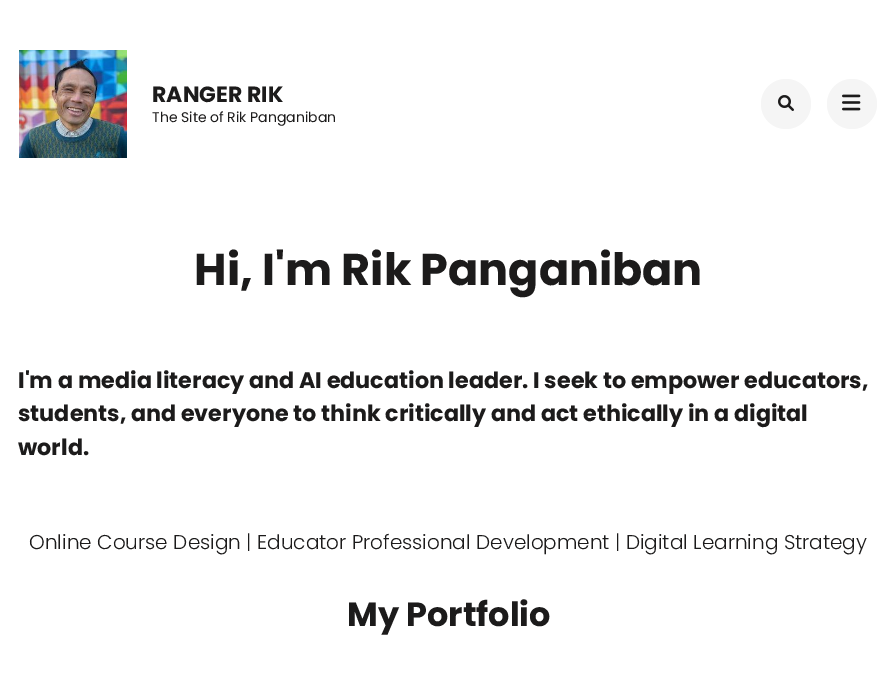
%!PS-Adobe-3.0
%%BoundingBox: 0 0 896 695
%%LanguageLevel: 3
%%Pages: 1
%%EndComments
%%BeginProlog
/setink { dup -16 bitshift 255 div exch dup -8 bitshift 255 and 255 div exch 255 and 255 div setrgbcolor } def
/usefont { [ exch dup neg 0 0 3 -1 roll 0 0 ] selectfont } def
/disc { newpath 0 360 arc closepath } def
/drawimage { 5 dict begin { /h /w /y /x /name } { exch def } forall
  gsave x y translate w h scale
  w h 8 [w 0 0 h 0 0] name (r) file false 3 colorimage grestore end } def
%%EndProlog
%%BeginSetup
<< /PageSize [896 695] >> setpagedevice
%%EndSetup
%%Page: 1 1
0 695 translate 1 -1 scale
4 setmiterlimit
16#FFFFFF setink
0 0 896 695 rectfill
(img1.raw) 19 50 108 108 drawimage
/Poppins-Bold 22 usefont
16#1C1B1B setink
152 102 moveto (RANGER RIK) show
/Poppins-Regular 14 usefont
152 122 moveto (The Site of Rik Panganiban) show
16#F5F5F5 setink
786 104 25 disc fill
(img2.raw) 778 95 16 16 drawimage
852 104 25 disc fill
(img3.raw) 842 94 19 17 drawimage
/Poppins-Bold 44.5 usefont
16#1C1B1B setink
194 285 moveto (Hi, I'm Rik Panganiban) show
/Poppins-Bold 22.25 usefont
[
    [(I'm a media literacy and AI education leader. I seek to empower educators,) 18 388]
    [(students, and everyone to think critically and act ethically in a digital) 18 421]
    [(world.) 18 455]
] { aload pop moveto show } forall
/Poppins-Light 20 usefont
29 549 moveto (Online Course Design | Educator Professional Development | Digital Learning Strategy) show
/Poppins-Bold 33.5 usefont
347 626 moveto (My Portfolio) show
showpage
%%EOF
